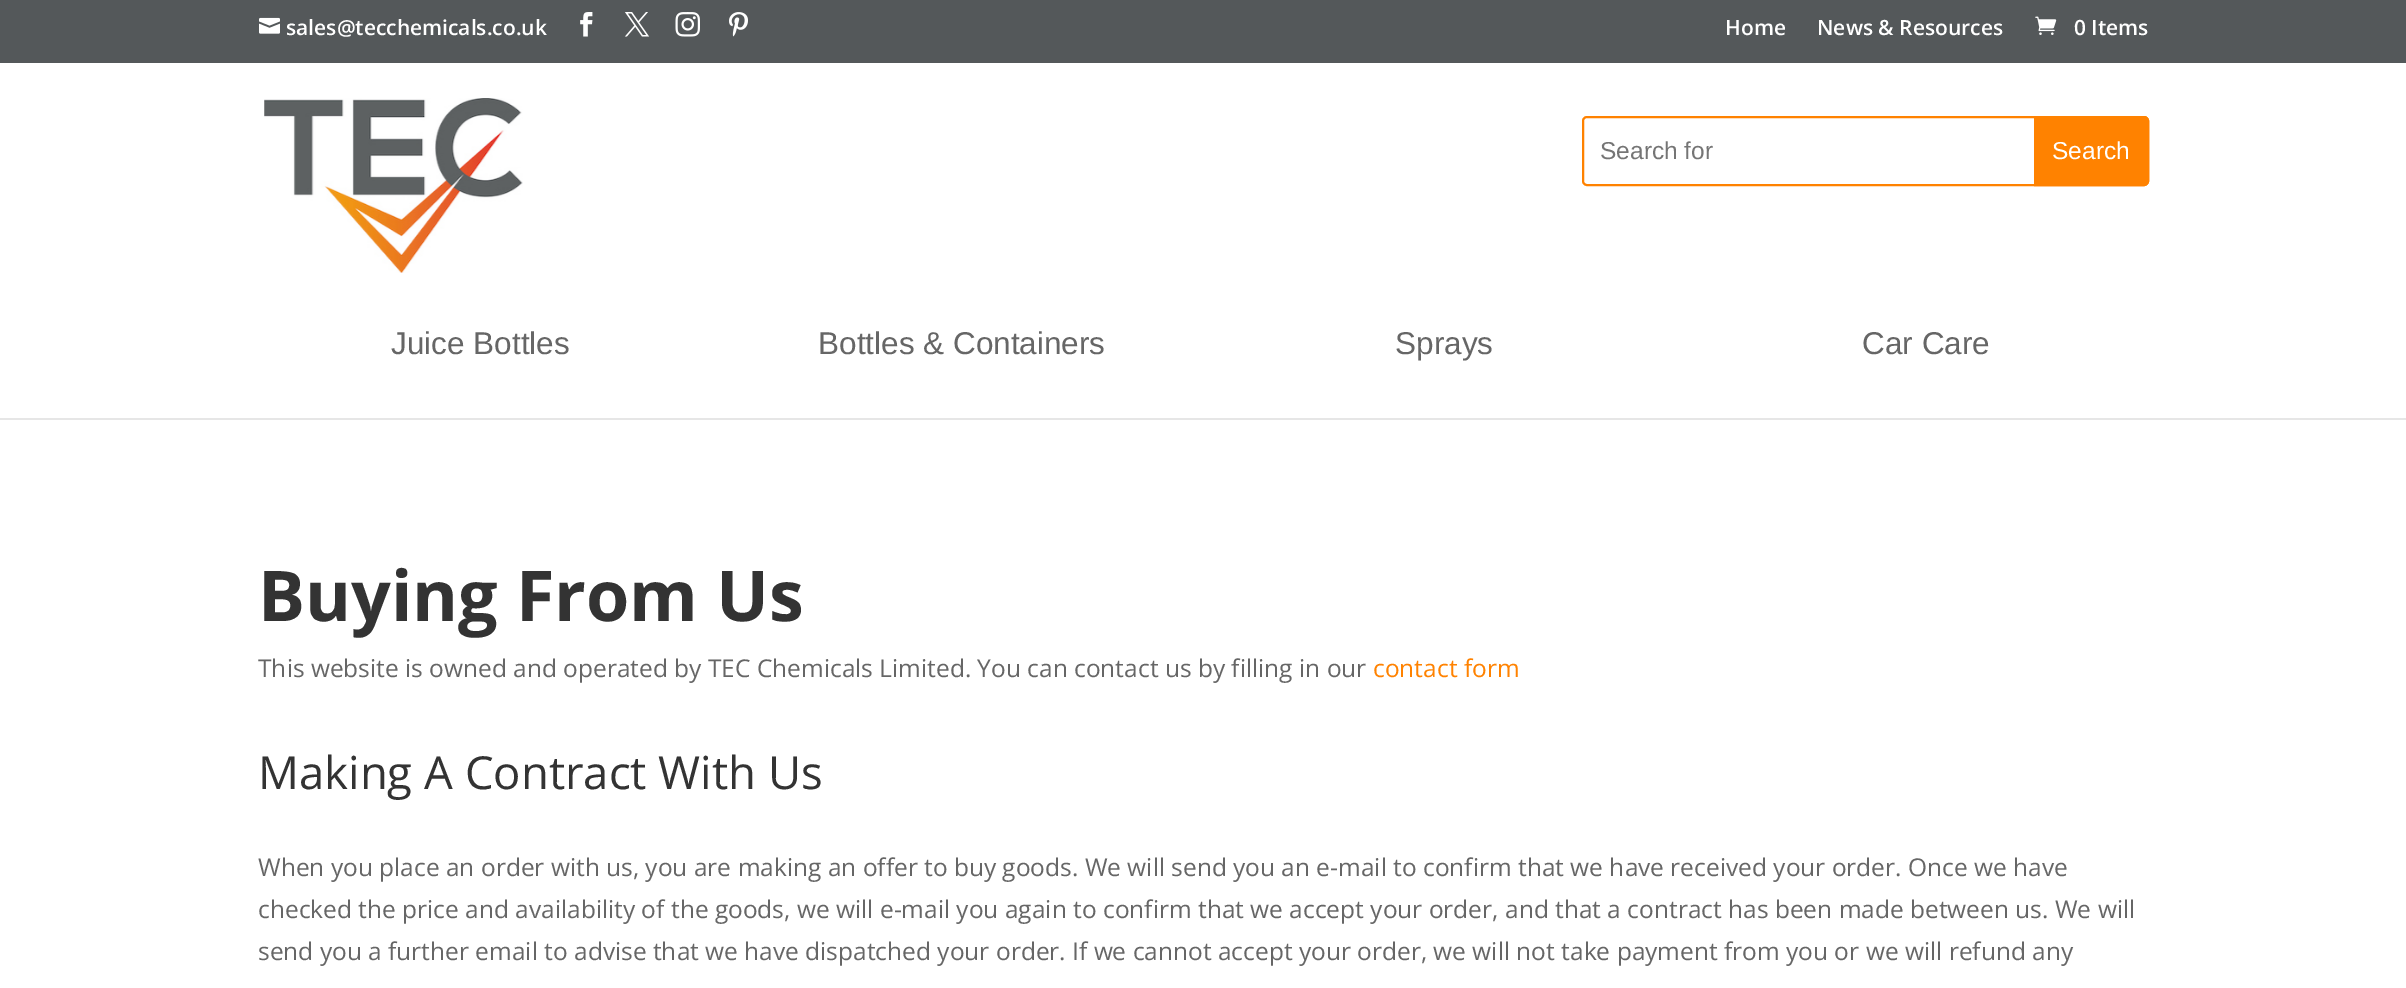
%!PS-Adobe-3.0
%%BoundingBox: 0 0 2406 988
%%LanguageLevel: 3
%%Pages: 1
%%EndComments
%%BeginProlog
/setink { dup -16 bitshift 255 div exch dup -8 bitshift 255 and 255 div exch 255 and 255 div setrgbcolor } def
/usefont { [ exch dup neg 0 0 3 -1 roll 0 0 ] selectfont } def
/rrect { 5 dict begin { /r /h /w /y /x } { exch def } forall
  x r add y moveto x w add y 2 copy h add r arct x w add y h add x 1 index r arct
  x y h add x y r arct x y 2 copy exch w add exch r arct closepath end } def
/drawimage { 5 dict begin { /h /w /y /x /name } { exch def } forall
  gsave x y translate w h scale
  w h 8 [w 0 0 h 0 0] name (r) file false 3 colorimage grestore end } def
%%EndProlog
%%BeginSetup
<< /PageSize [2406 988] >> setpagedevice
%%EndSetup
%%Page: 1 1
0 988 translate 1 -1 scale
4 setmiterlimit
16#FFFFFF setink
0 0 2406 988 rectfill
16#54585A setink
0 0 2406 63 rectfill
(img1.raw) 259 17 21 17 drawimage
/OpenSans-SemiBold 21 usefont
16#FFFFFF setink
286 35 moveto (sales@tecchemicals.co.uk) show
(img2.raw) 580 12 13 25 drawimage
(img3.raw) 624 12 26 25 drawimage
(img4.raw) 675 12 25 25 drawimage
(img5.raw) 729 12 19 25 drawimage
1725 35 moveto (Home) show
1817 35 moveto (News & Resources) show
(img6.raw) 2035 16 22 19 drawimage
2074 35 moveto (0 Items) show
16#E6E6E6 setink
0 418 2406 2 rectfill
(img7.raw) 264 98 259 175 drawimage
16#FF8200 setink
2 setlinewidth
1583 117 565 68 4 rrect stroke
/LiberationSans-Regular 24.5 usefont
16#757575 setink
1600 159 moveto (Search for) show
16#FF8200 setink
2035 117 moveto 2144 117 lineto 2146 117 2148 119 2148 121 curveto 2148 181 lineto 2148 183 2146 185 2144 185 curveto 2035 185 lineto closepath gsave fill grestore
stroke
16#FFFFFF setink
2052 159 moveto (Search) show
/LiberationSans-Regular 31.5 usefont
16#666666 setink
[
    [(Juice Bottles) 391 354]
    [(Bottles & Containers) 818 354]
    [(Sprays) 1395 354]
    [(Car Care) 1862 354]
] { aload pop moveto show } forall
/OpenSans-Bold 70 usefont
16#333333 setink
258 621 moveto (Buying From Us) show
/OpenSans-Regular 24.5 usefont
16#666666 setink
258 677 moveto (This website is owned and operated by TEC Chemicals Limited. You can contact us by filling in our) show
16#FF8200 setink
1373 677 moveto (contact form) show
/OpenSans-Regular 45.5 usefont
16#333333 setink
258 789 moveto (Making A Contract With Us) show
/OpenSans-Regular 24.5 usefont
16#666666 setink
[
    [(When you place an order with us, you are making an offer to buy goods. We will send you an e-mail to confirm that we have received your order. Once we have) 258 876]
    [(checked the price and availability of the goods, we will e-mail you again to confirm that we accept your order, and that a contract has been made between us. We will) 258 918]
    [(send you a further email to advise that we have dispatched your order. If we cannot accept your order, we will not take payment from you or we will refund any) 258 960]
] { aload pop moveto show } forall
showpage
%%EOF
